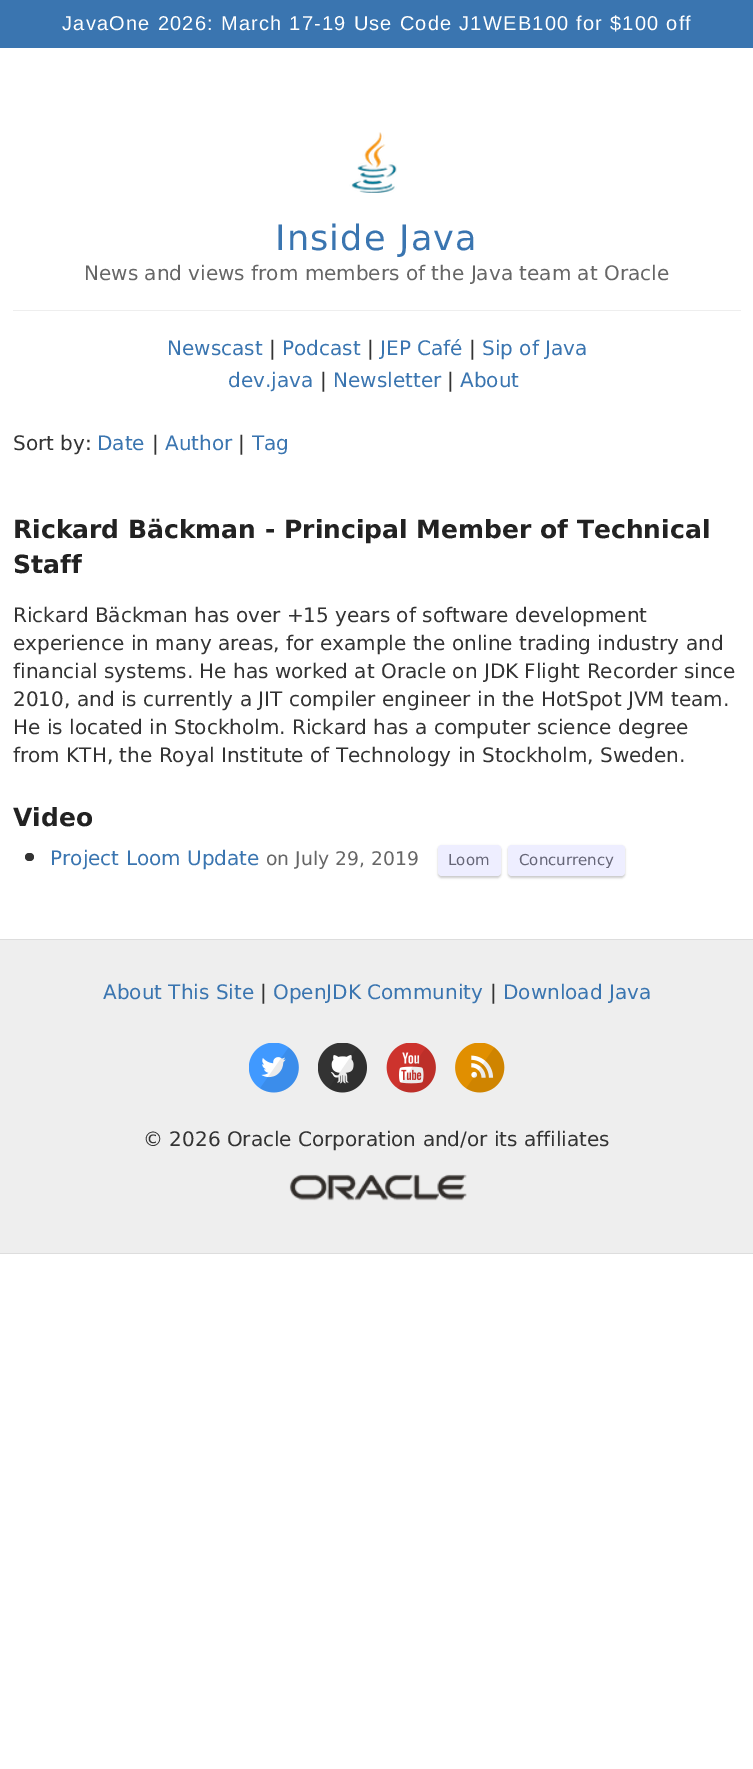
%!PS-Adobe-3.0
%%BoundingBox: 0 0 753 1769
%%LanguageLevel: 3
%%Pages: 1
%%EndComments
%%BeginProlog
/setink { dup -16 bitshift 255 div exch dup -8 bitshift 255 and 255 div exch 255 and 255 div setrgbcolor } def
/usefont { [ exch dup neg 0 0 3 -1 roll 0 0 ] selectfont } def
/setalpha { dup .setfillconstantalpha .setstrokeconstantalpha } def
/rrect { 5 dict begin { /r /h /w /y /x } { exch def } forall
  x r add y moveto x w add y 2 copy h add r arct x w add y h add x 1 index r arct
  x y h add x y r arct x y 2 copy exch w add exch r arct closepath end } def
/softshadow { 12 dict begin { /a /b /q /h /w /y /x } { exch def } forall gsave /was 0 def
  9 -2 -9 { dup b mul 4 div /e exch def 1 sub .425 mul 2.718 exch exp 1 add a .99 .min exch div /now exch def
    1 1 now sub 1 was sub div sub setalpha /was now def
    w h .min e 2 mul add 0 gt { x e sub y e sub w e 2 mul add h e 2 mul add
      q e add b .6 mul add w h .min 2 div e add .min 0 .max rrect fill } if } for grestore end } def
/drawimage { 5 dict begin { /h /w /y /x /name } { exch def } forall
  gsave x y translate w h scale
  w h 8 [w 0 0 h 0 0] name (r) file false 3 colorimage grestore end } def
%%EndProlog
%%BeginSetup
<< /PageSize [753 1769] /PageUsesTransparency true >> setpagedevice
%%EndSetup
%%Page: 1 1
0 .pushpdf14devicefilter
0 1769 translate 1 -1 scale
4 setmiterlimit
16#FFFFFF setink
0 0 753 1769 rectfill
16#3A75B0 setink
0 0 753 48 rectfill
/LiberationSans-Regular 20 usefont
16#FFFFFF setink
62 30 moveto 1.25 0 (JavaOne 2026: March 17-19 Use Code J1WEB100 for $100 off) ashow
16#EEEEEE setink
13 310 728 1 rectfill
(img1.raw) 349 132 48 61 drawimage
/DejaVuSans-Regular 35 usefont
16#3A75B0 setink
275 250 moveto 1.25 0 (Inside Java) ashow
/DejaVuSans-Regular 20 usefont
16#666666 setink
84 280 moveto (News and views from members of the Java team at Oracle) show
16#3A75B0 setink
167 355 moveto (Newscast) show
16#333333 setink
269 355 moveto (|) show
16#3A75B0 setink
282 355 moveto (Podcast) show
16#333333 setink
367 355 moveto (|) show
16#3A75B0 setink
380 355 moveto (JEP Café) show
16#333333 setink
469 355 moveto (|) show
16#3A75B0 setink
482 355 moveto (Sip of Java) show
228 387 moveto (dev.java) show
16#333333 setink
320 387 moveto (|) show
16#3A75B0 setink
333 387 moveto (Newsletter) show
16#333333 setink
447 387 moveto (|) show
16#3A75B0 setink
460 387 moveto (About) show
16#333333 setink
13 450 moveto (Sort by:) show
16#3A75B0 setink
97 450 moveto (Date) show
16#333333 setink
152 450 moveto (|) show
16#3A75B0 setink
165 450 moveto (Author) show
16#333333 setink
238 450 moveto (|) show
16#3A75B0 setink
252 450 moveto (Tag) show
/DejaVuSans-Bold 25 usefont
16#222222 setink
13 538 moveto (Rickard Bäckman - Principal Member of Technical) show
13 573 moveto (Staff) show
/DejaVuSans-Regular 20 usefont
16#333333 setink
[
    [(Rickard Bäckman has over +15 years of software development) 13 622]
    [(experience in many areas, for example the online trading industry and) 13 650]
    [(financial systems. He has worked at Oracle on JDK Flight Recorder since) 13 678]
    [(2010, and is currently a JIT compiler engineer in the HotSpot JVM team.) 13 706]
    [(He is located in Stockholm. Rickard has a computer science degree) 13 734]
    [(from KTH, the Royal Institute of Technology in Stockholm, Sweden.) 13 762]
] { aload pop moveto show } forall
/DejaVuSans-Bold 25 usefont
16#222222 setink
13 826 moveto (Video) show
16#333333 setink
25 853 9 8 4 rrect fill
/DejaVuSans-Regular 20 usefont
16#3A75B0 setink
50 865 moveto (Project Loom Update) show
/DejaVuSans-Regular 18.75 usefont
16#666666 setink
266 865 moveto (on July 29, 2019) show
16#000000 setink
438 846 63 32 4 1 0.2 softshadow
16#EEEEFF setink
438 845 63 31 4 rrect fill
/DejaVuSans-Regular 15 usefont
16#666677 setink
448 865 moveto (Loom) show
16#000000 setink
508 846 117 32 4 1 0.2 softshadow
16#EEEEFF setink
508 845 117 31 4 rrect fill
16#666677 setink
519 865 moveto (Concurrency) show
[
    [0 940 753 313 16#EEEEEE]
    [0 939 753 1 16#DDDDDD]
    [0 1253 753 1 16#DDDDDD]
] { aload pop setink rectfill } forall
/DejaVuSans-Regular 20 usefont
16#3A75B0 setink
103 999 moveto (About This Site) show
16#333333 setink
260 999 moveto (|) show
16#3A75B0 setink
273 999 moveto (OpenJDK Community) show
16#333333 setink
490 999 moveto (|) show
16#3A75B0 setink
503 999 moveto (Download Java) show
(img2.raw) 249 1043 50 50 drawimage
(img3.raw) 318 1043 49 50 drawimage
(img4.raw) 386 1043 50 50 drawimage
(img5.raw) 455 1043 50 50 drawimage
16#333333 setink
143 1146 moveto (© 2026 Oracle Corporation and/or its affiliates) show
(img6.raw) 289 1174 178 27 drawimage
.poppdf14devicefilter showpage
%%EOF
